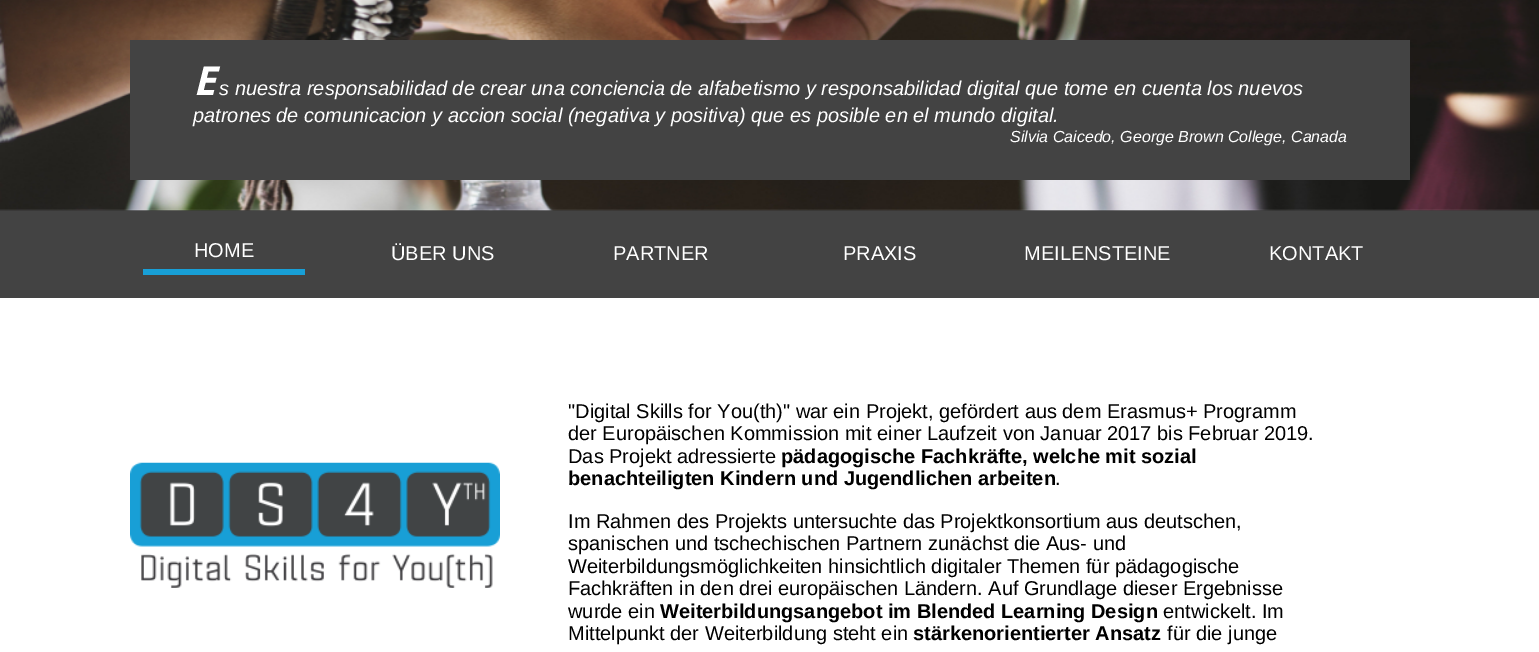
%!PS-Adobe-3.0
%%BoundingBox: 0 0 1539 652
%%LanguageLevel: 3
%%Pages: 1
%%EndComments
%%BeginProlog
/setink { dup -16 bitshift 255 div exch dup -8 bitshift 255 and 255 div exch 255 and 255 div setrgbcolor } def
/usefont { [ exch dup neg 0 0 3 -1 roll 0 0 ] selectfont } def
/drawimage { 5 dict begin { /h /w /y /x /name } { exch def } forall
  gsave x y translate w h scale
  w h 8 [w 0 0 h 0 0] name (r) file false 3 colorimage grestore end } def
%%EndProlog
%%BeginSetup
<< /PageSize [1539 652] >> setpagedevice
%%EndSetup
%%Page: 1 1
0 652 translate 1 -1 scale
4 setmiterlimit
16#FFFFFF setink
0 0 1539 652 rectfill
16#434343 setink
0 210 1539 88 rectfill
(img1.raw) 0 0 1539 211 drawimage
130 40 1280 140 rectfill
/NotoSans-BoldItalic 40 usefont
16#FFFFFF setink
193 95 moveto (E) show
/LiberationSans-Italic 20 usefont
219 95 moveto (s nuestra responsabilidad de crear una conciencia de alfabetismo y responsabilidad digital que tome en cuenta los nuevos) show
193 122 moveto (patrones de comunicacion y accion social \(negativa y positiva\) que es posible en el mundo digital.) show
/LiberationSans-Italic 16 usefont
1010 142 moveto (Silvia Caicedo, George Brown College, Canada) show
16#189FD6 setink
143 269 162 6 rectfill
/LiberationSans-Regular 20 usefont
16#FFFFFF setink
[
    [(HOME) 194 257]
    [(ÜBER UNS) 391 260]
    [(PARTNER) 613 260]
    [(PRAXIS) 843 260]
    [(MEILENSTEINE) 1024 260]
    [(KONTAKT) 1269 260]
] { aload pop moveto show } forall
(img2.raw) 130 462 370 126 drawimage
16#000000 setink
[
    [("Digital Skills for You\(th\)" war ein Projekt, gefördert aus dem Erasmus+ Programm) 568 418]
    [(der Europäischen Kommission mit einer Laufzeit von Januar 2017 bis Februar 2019.) 568 440]
    [(Das Projekt adressierte) 568 463]
] { aload pop moveto show } forall
/LiberationSans-Bold 20 usefont
781 463 moveto (pädagogische Fachkräfte, welche mit sozial) show
568 485 moveto (benachteiligten Kindern und Jugendlichen arbeiten) show
/LiberationSans-Regular 20 usefont
[
    [(.) 1055 485]
    [(Im Rahmen des Projekts untersuchte das Projektkonsortium aus deutschen,) 568 528]
    [(spanischen und tschechischen Partnern zunächst die Aus- und) 568 550]
    [(Weiterbildungsmöglichkeiten hinsichtlich digitaler Themen für pädagogische) 568 573]
    [(Fachkräften in den drei europäischen Ländern. Auf Grundlage dieser Ergebnisse) 568 595]
    [(wurde ein) 568 618]
] { aload pop moveto show } forall
/LiberationSans-Bold 20 usefont
660 618 moveto (Weiterbildungsangebot im Blended Learning Design) show
/LiberationSans-Regular 20 usefont
1163 618 moveto (entwickelt. Im) show
568 640 moveto (Mittelpunkt der Weiterbildung steht ein) show
/LiberationSans-Bold 20 usefont
913 640 moveto (stärkenorientierter Ansatz) show
/LiberationSans-Regular 20 usefont
1167 640 moveto (für die junge) show
showpage
%%EOF
